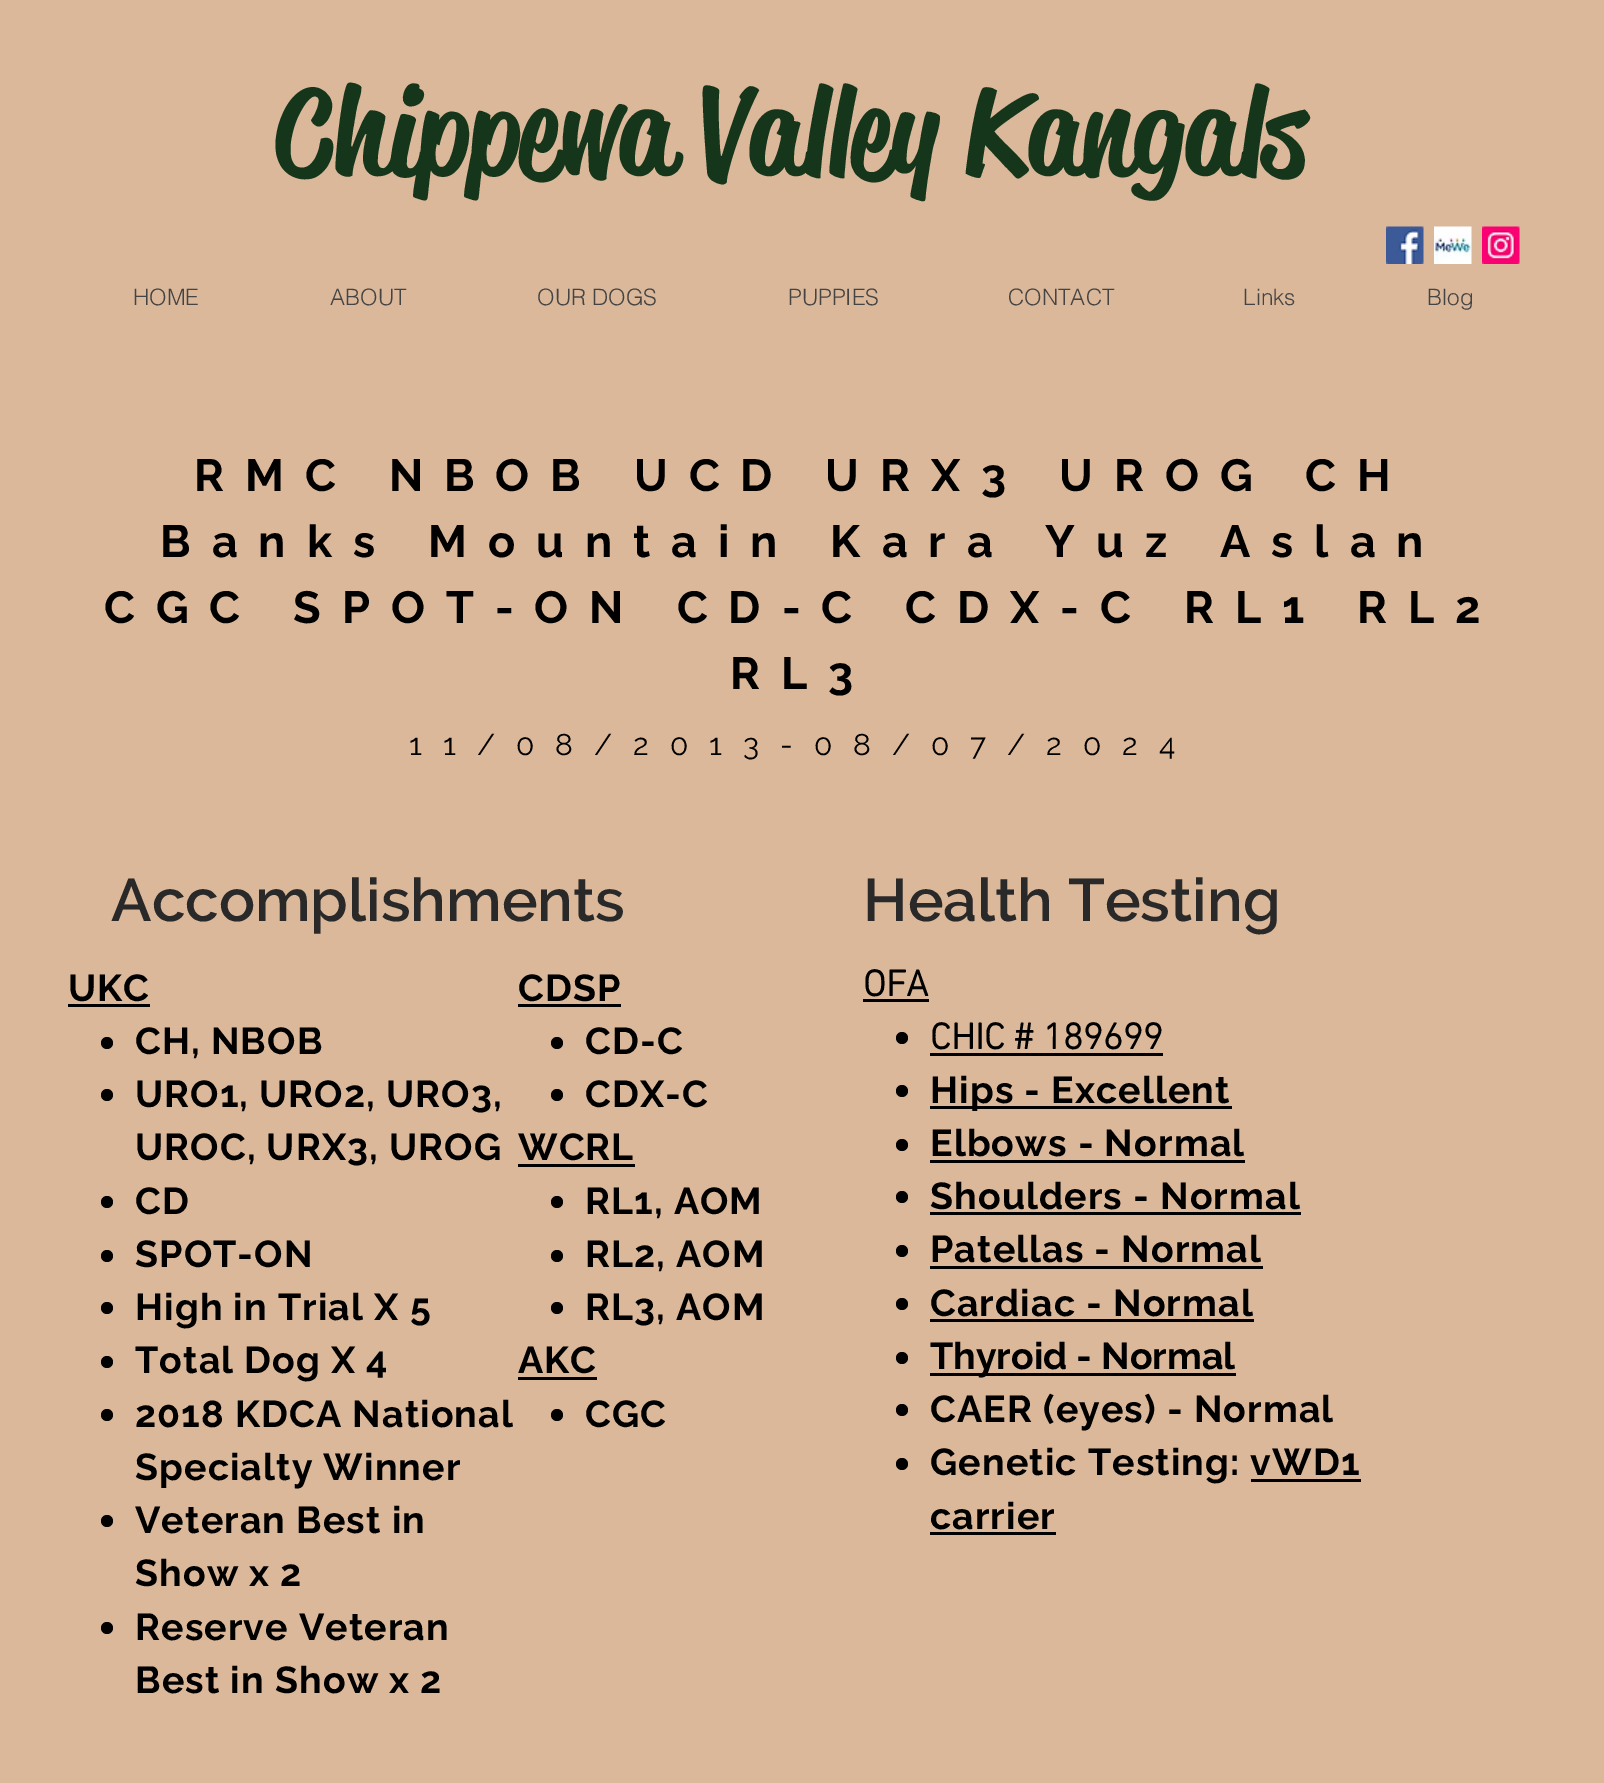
%!PS-Adobe-3.0
%%BoundingBox: 0 0 1604 1783
%%LanguageLevel: 3
%%Pages: 1
%%EndComments
%%BeginProlog
/setink { dup -16 bitshift 255 div exch dup -8 bitshift 255 and 255 div exch 255 and 255 div setrgbcolor } def
/usefont { [ exch dup neg 0 0 3 -1 roll 0 0 ] selectfont } def
/disc { newpath 0 360 arc closepath } def
/drawimage { 5 dict begin { /h /w /y /x /name } { exch def } forall
  gsave x y translate w h scale
  w h 8 [w 0 0 h 0 0] name (r) file false 3 colorimage grestore end } def
%%EndProlog
%%BeginSetup
<< /PageSize [1604 1783] >> setpagedevice
%%EndSetup
%%Page: 1 1
0 1783 translate 1 -1 scale
4 setmiterlimit
16#DBB89A setink
0 0 1604 1783 rectfill
/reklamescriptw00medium-Medium 120 usefont
16#15361B setink
274 173 moveto (Chippewa Valley Kangals) show
(img1.raw) 1386 226 38 38 drawimage
(img2.raw) 1434 226 38 38 drawimage
(img3.raw) 1482 226 38 38 drawimage
/helvetica-Light 22.5 usefont
16#444444 setink
[
    [(HOME) 133 305]
    [(ABOUT) 330 305]
    [(OUR DOGS) 537 305]
    [(PUPPIES) 788 305]
    [(CONTACT) 1008 305]
    [(Links) 1243 305]
    [(Blog) 1427 305]
] { aload pop moveto show } forall
/Raleway-Bold 45 usefont
16#000000 setink
194 491 moveto 21 0 (RMC NBOB UCD URX3 UROG CH) ashow
160 557 moveto 21 0 (Banks Mountain Kara Yuz Aslan) ashow
104 623 moveto 21 0 (CGC SPOT-ON CD-C CDX-C RL1 RL2) ashow
730 689 moveto 21 0 (RL3) ashow
/Raleway-Regular 30 usefont
409 755 moveto 21 0 (11/08/2013-08/07/2024) ashow
/Raleway-SemiBold 60 usefont
16#292929 setink
111 921 moveto (Accomplishments) show
863 921 moveto (Health Testing) show
/Raleway-Bold 37.5 usefont
16#000000 setink
68 1001 moveto 1.1 0 (UKC) ashow
68 1004 82 3 rectfill
107 1043 6 disc fill
135 1054 moveto 1.1 0 (CH, NBOB) ashow
107 1095 6 disc fill
135 1107 moveto 1.1 0 (URO1, URO2, URO3,) ashow
135 1160 moveto 1.1 0 (UROC, URX3, UROG) ashow
107 1202 6 disc fill
135 1214 moveto 1.1 0 (CD) ashow
107 1256 6 disc fill
135 1267 moveto 1.1 0 (SPOT-ON) ashow
107 1308 6 disc fill
135 1320 moveto 1.1 0 (High in Trial X 5) ashow
107 1362 6 disc fill
135 1373 moveto 1.1 0 (Total Dog X 4) ashow
107 1415 6 disc fill
135 1427 moveto 1.1 0 (2018 KDCA National) ashow
135 1480 moveto 1.1 0 (Specialty Winner) ashow
107 1521 6 disc fill
135 1533 moveto 1.1 0 (Veteran Best in) ashow
135 1586 moveto 1.1 0 (Show x 2) ashow
107 1628 6 disc fill
135 1640 moveto 1.1 0 (Reserve Veteran) ashow
135 1693 moveto 1.1 0 (Best in Show x 2) ashow
518 1001 moveto 1.1 0 (CDSP) ashow
518 1004 103 3 rectfill
557 1043 6 disc fill
585 1054 moveto 1.1 0 (CD-C) ashow
557 1095 6 disc fill
585 1107 moveto 1.1 0 (CDX-C) ashow
518 1160 moveto 1.1 0 (WCRL) ashow
518 1164 117 3 rectfill
557 1202 6 disc fill
585 1214 moveto 1.1 0 (RL1, AOM) ashow
557 1256 6 disc fill
585 1267 moveto 1.1 0 (RL2, AOM) ashow
557 1308 6 disc fill
585 1320 moveto 1.1 0 (RL3, AOM) ashow
518 1373 moveto 1.1 0 (AKC) ashow
518 1377 79 3 rectfill
557 1415 6 disc fill
585 1427 moveto 1.1 0 (CGC) ashow
/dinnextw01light-Bold 37.5 usefont
863 996 moveto (OFA) show
863 999 66 3 rectfill
902 1038 6 disc fill
930 1049 moveto (CHIC # 189699) show
930 1053 233 3 rectfill
902 1091 6 disc fill
930 1106 302 3 rectfill
/Raleway-Bold 37.5 usefont
930 1103 moveto 1.1 0 (Hips - Excellent) ashow
902 1145 6 disc fill
930 1156 moveto 1.1 0 (Elbows - Normal) ashow
930 1160 315 3 rectfill
902 1197 6 disc fill
930 1209 moveto 1.1 0 (Shoulders - Normal) ashow
930 1212 371 3 rectfill
902 1251 6 disc fill
930 1262 moveto 1.1 0 (Patellas - Normal) ashow
930 1266 333 3 rectfill
902 1304 6 disc fill
930 1316 moveto 1.1 0 (Cardiac - Normal) ashow
930 1319 324 3 rectfill
902 1358 6 disc fill
930 1373 306 3 rectfill
930 1369 moveto (Thyroid - Normal) show
902 1410 6 disc fill
930 1422 moveto 1.1 0 (CAER \(eyes\) - Normal) ashow
902 1464 6 disc fill
930 1475 moveto 1.1 0 (Genetic Testing: vWD1) ashow
1251 1479 110 3 rectfill
930 1529 moveto 1.1 0 (carrier) ashow
930 1532 126 3 rectfill
showpage
%%EOF
